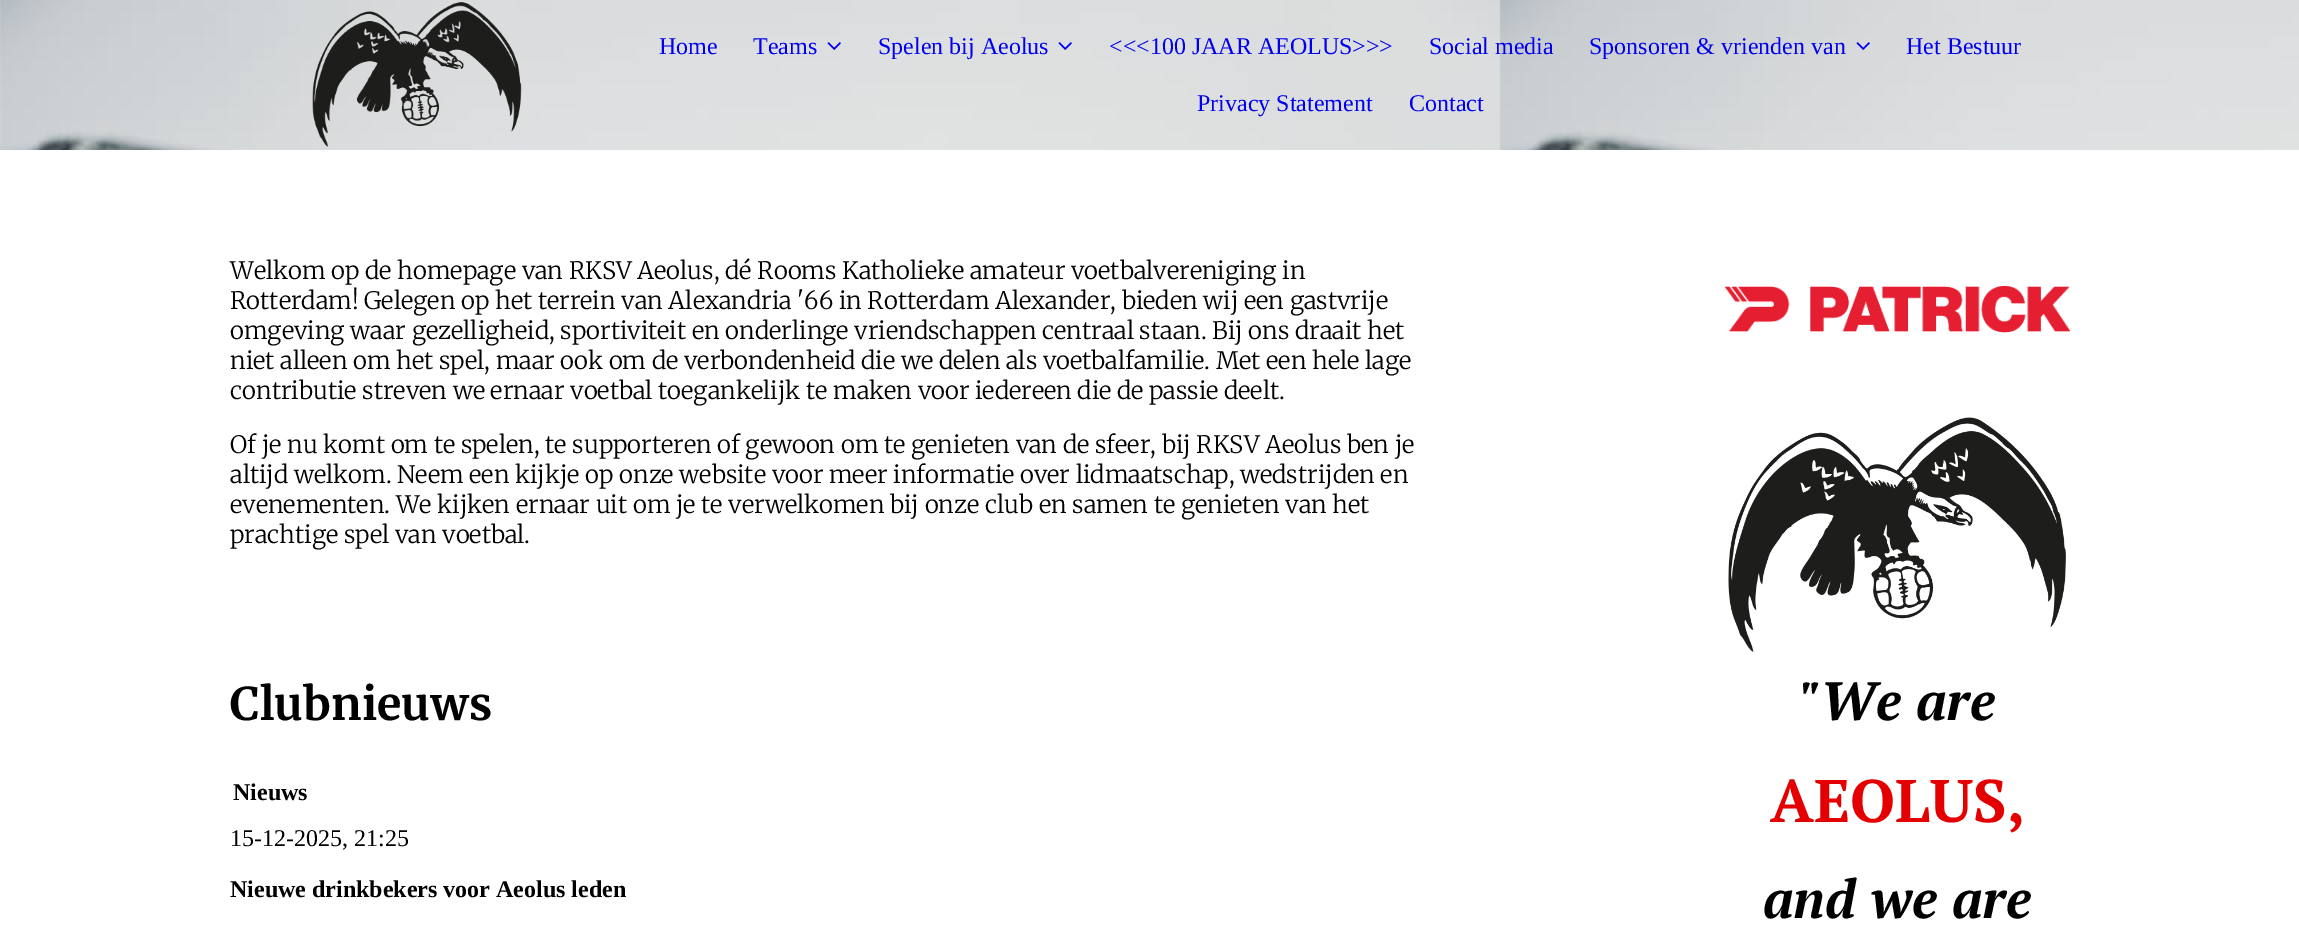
%!PS-Adobe-3.0
%%BoundingBox: 0 0 2299 931
%%LanguageLevel: 3
%%Pages: 1
%%EndComments
%%BeginProlog
/setink { dup -16 bitshift 255 div exch dup -8 bitshift 255 and 255 div exch 255 and 255 div setrgbcolor } def
/usefont { [ exch dup neg 0 0 3 -1 roll 0 0 ] selectfont } def
/drawimage { 5 dict begin { /h /w /y /x /name } { exch def } forall
  gsave x y translate w h scale
  w h 8 [w 0 0 h 0 0] name (r) file false 3 colorimage grestore end } def
%%EndProlog
%%BeginSetup
<< /PageSize [2299 931] >> setpagedevice
%%EndSetup
%%Page: 1 1
0 931 translate 1 -1 scale
4 setmiterlimit
16#FFFFFF setink
0 0 2299 931 rectfill
(img1.raw) 0 0 2299 150 drawimage
(img2.raw) 312 2 210 145 drawimage
/LiberationSerif-Regular 24 usefont
16#0000EE setink
659 54 moveto (Home) show
753 54 moveto (Teams) show
(img3.raw) 827 42 14 8 drawimage
878 54 moveto (Spelen bij Aeolus) show
(img4.raw) 1058 42 14 8 drawimage
[
    [(<<<100 JAAR AEOLUS>>>) 1109 54]
    [(Social media) 1429 54]
    [(Sponsoren & vrienden van) 1589 54]
] { aload pop moveto show } forall
(img5.raw) 1856 42 14 8 drawimage
[
    [(Het Bestuur) 1906 54]
    [(Privacy Statement) 1197 111]
    [(Contact) 1409 111]
] { aload pop moveto show } forall
/Merriweather-Light 24 usefont
16#000000 setink
[
    [(Welkom op de homepage van RKSV Aeolus, dé Rooms Katholieke amateur voetbalvereniging in) 230 279]
    [(Rotterdam! Gelegen op het terrein van Alexandria '66 in Rotterdam Alexander, bieden wij een gastvrije) 230 309]
    [(omgeving waar gezelligheid, sportiviteit en onderlinge vriendschappen centraal staan. Bij ons draait het) 230 339]
    [(niet alleen om het spel, maar ook om de verbondenheid die we delen als voetbalfamilie. Met een hele lage) 230 369]
    [(contributie streven we ernaar voetbal toegankelijk te maken voor iedereen die de passie deelt.) 230 399]
    [(Of je nu komt om te spelen, te supporteren of gewoon om te genieten van de sfeer, bij RKSV Aeolus ben je) 230 453]
    [(altijd welkom. Neem een kijkje op onze website voor meer informatie over lidmaatschap, wedstrijden en) 230 483]
    [(evenementen. We kijken ernaar uit om je te verwelkomen bij onze club en samen te genieten van het) 230 513]
    [(prachtige spel van voetbal.) 230 543]
] { aload pop moveto show } forall
/Merriweather-Bold 45 usefont
230 720 moveto (Clubnieuws) show
/LiberationSerif-Bold 24 usefont
233 800 moveto (Nieuws) show
/LiberationSerif-Regular 24 usefont
230 846 moveto (15-12-2025, 21:25) show
/LiberationSerif-Bold 24 usefont
230 897 moveto (Nieuwe drinkbekers voor Aeolus leden) show
(img6.raw) 1725 286 345 47 drawimage
(img7.raw) 1728 417 338 235 drawimage
/PTSerif-BoldItalic 54 usefont
1799 720 moveto ("We are) show
/PTSerif-Bold 60 usefont
16#E40000 setink
1770 822 moveto (AEOLUS,) show
/PTSerif-BoldItalic 54 usefont
16#000000 setink
1763 918 moveto (and we are) show
showpage
%%EOF
